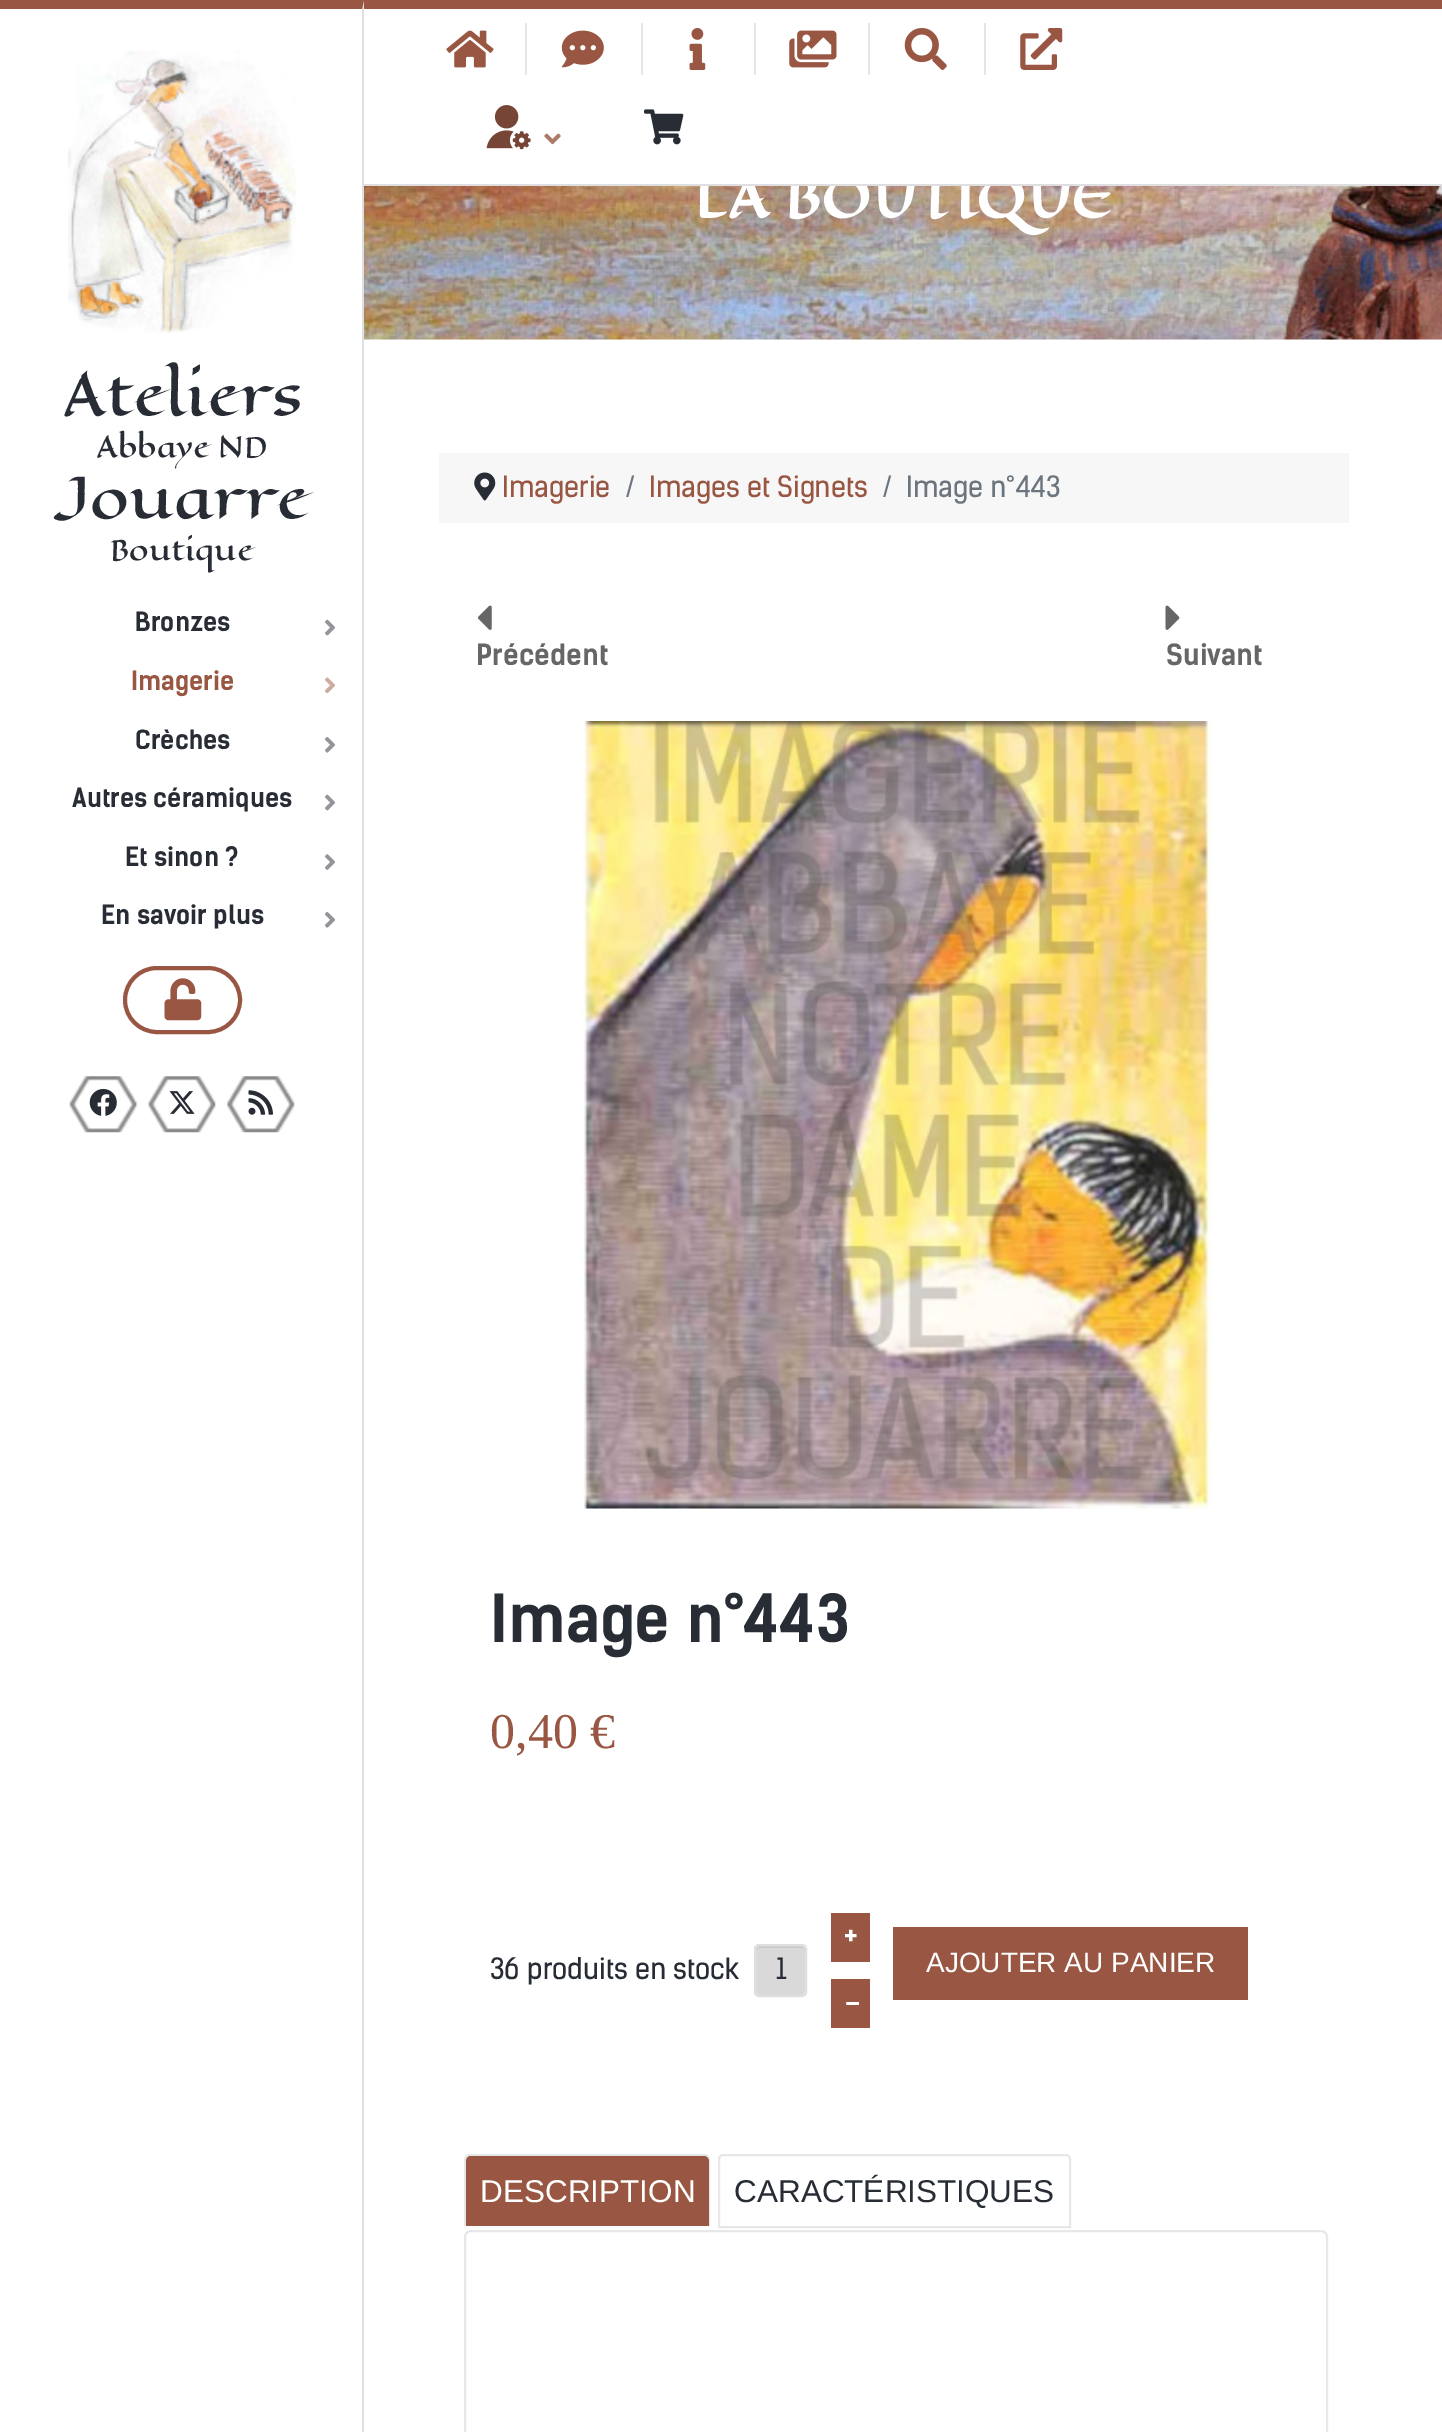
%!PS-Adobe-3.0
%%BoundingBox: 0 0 1442 2432
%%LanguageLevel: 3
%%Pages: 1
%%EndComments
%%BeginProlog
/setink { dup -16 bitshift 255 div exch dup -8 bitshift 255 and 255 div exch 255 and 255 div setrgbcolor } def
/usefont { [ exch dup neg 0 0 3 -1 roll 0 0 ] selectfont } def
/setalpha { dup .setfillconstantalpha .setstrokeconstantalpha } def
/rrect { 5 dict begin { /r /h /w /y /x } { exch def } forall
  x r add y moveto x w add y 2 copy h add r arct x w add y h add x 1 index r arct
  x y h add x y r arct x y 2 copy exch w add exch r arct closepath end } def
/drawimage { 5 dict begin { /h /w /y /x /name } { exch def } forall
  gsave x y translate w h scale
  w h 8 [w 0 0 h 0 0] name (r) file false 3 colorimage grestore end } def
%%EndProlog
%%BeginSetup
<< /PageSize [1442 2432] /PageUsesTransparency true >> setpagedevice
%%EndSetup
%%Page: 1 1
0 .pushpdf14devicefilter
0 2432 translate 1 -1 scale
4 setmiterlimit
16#FFFFFF setink
0 0 1442 2432 rectfill
16#995743 setink
364 0 1078 9 rectfill
(img10.raw) 364 186 1078 154 drawimage
/EagleLake-Bold 53.25 usefont
16#FFFFFF setink
693 217 moveto (LA BOUTIQUE) show
16#DFDFE1 setink
364 184 1078 2 rectfill
16#E6E6E6 setink
525 23 2 52 rectfill
(img1.raw) 446 30 48 38 drawimage
641 23 2 52 rectfill
(img2.raw) 561 30 43 38 drawimage
754 23 2 52 rectfill
(img3.raw) 689 28 17 42 drawimage
868 23 2 52 rectfill
(img4.raw) 789 30 48 38 drawimage
984 23 2 52 rectfill
(img5.raw) 904 28 43 42 drawimage
(img6.raw) 1020 28 43 42 drawimage
(img7.raw) 486 105 45 45 drawimage
(img8.raw) 544 133 17 12 drawimage
(img9.raw) 644 109 40 36 drawimage
16#995743 setink
0 0 moveto 364 0 lineto 362 9 lineto 0 9 lineto closepath fill
0.15 setalpha
16#272C35 setink
364 0 moveto 364 2432 lineto 362 2432 lineto 362 9 lineto closepath fill
1 setalpha
(img11.raw) 68 50 228 283 drawimage
/EagleLake-Regular 56 usefont
62 415 moveto (Ateliers) show
/EagleLake-Regular 28 usefont
96 457 moveto (Abbaye ND) show
/EagleLake-Regular 56 usefont
54 518 moveto (Jouarre) show
/EagleLake-Regular 28 usefont
110 560 moveto (Boutique) show
/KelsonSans-Bold 25.25 usefont
135 631 moveto (Bronzes) show
(img12.raw) 325 619 11 17 drawimage
16#995743 setink
131 690 moveto (Imagerie) show
(img13.raw) 325 677 11 17 drawimage
16#272C35 setink
135 749 moveto (Crèches) show
(img14.raw) 325 737 11 16 drawimage
72 807 moveto (Autres céramiques) show
(img12.raw) 325 794 11 17 drawimage
125 866 moveto (Et sinon ?) show
(img15.raw) 325 854 10 16 drawimage
101 924 moveto (En savoir plus) show
(img14.raw) 325 912 11 16 drawimage
16#995743 setink
4 setlinewidth
125 968 115 64 32 rrect stroke
(img16.raw) 164 978 38 43 drawimage
(img17.raw) 69 1076 69 57 drawimage
(img18.raw) 89 1088 28 28 drawimage
(img19.raw) 148 1076 68 57 drawimage
(img20.raw) 169 1091 26 23 drawimage
(img21.raw) 227 1076 68 57 drawimage
(img22.raw) 248 1090 25 25 drawimage
16#F7F7F7 setink
439 453 910 70 rectfill
(img23.raw) 474 472 22 29 drawimage
/KelsonSans-Regular 28 usefont
16#995743 setink
502 497 moveto (Imagerie) show
16#6C757D setink
625 497 moveto (/) show
16#995743 setink
649 497 moveto (Images et Signets) show
16#6C757D setink
882 497 moveto (/) show
906 497 moveto (Image n°443) show
(img24.raw) 477 605 15 25 drawimage
/KelsonSans-Bold 28 usefont
16#666666 setink
476 665 moveto (Précédent) show
(img25.raw) 1165 605 15 25 drawimage
1166 665 moveto (Suivant) show
(img26.raw) 581 721 632 788 drawimage
/KelsonSans-Bold 63 usefont
16#272C35 setink
490 1642 moveto (Image n°443) show
/LiberationSerif-Regular 50 usefont
16#995743 setink
490 1748 moveto (0,40 €) show
/KelsonSans-Regular 28 usefont
16#272C35 setink
490 1979 moveto (36 produits en stock) show
16#D9D9D9 setink
756 1946 49 49 4 rrect fill
0.07 setalpha
16#000000 setink
760 1948 moveto 802 1948 lineto 803 1948 805 1949 805 1951 curveto 805 1945 799 1946 794 1946 curveto 767 1946 lineto 762 1946 756 1945 756 1951 curveto 756 1949 758 1948 760 1948 curveto closepath fill
1 setalpha
16#DFDFE1 setink
2 setlinewidth
755 1945 51 51 4 rrect stroke
16#272C35 setink
776 1979 moveto (1) show
16#995743 setink
831 1913 39 49 rectfill
/KelsonSans-Bold 28 usefont
16#FFFFFF setink
844 1946 moveto (+) show
16#995743 setink
831 1979 39 49 rectfill
16#FFFFFF setink
844 2013 moveto (–) show
16#995743 setink
893 1927 355 73 rectfill
/LiberationSans-Regular 28 usefont
16#FFFFFF setink
926 1972 moveto (AJOUTER AU PANIER) show
16#995743 setink
470 2156 moveto 705 2156 lineto 707 2156 709 2158 709 2160 curveto 709 2226 lineto 466 2226 lineto 466 2160 lineto 466 2158 468 2156 470 2156 curveto closepath fill
16#E7E7E7 setink
469 2154 moveto 705 2154 lineto 708 2154 710 2157 710 2160 curveto 710 2226 lineto 464 2226 lineto 464 2160 lineto 464 2157 466 2154 469 2154 curveto closepath 469 2156 moveto 705 2156 lineto 707 2156 709 2158 709 2160 curveto 709 2226 lineto 466 2226 lineto 466 2160 lineto 466 2158 467 2156 469 2156 curveto closepath eofill
/LiberationSans-Regular 31.5 usefont
16#FFFFFF setink
480 2202 moveto (DESCRIPTION) show
16#E7E7E7 setink
723 2155 moveto 1066 2155 lineto 1068 2155 1070 2157 1070 2159 curveto 1070 2227 lineto 719 2227 lineto 719 2159 lineto 719 2157 721 2155 723 2155 curveto closepath stroke
16#272C35 setink
734 2202 moveto (CARACTÉRISTIQUES) show
16#E7E7E7 setink
465 2231 862 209 6 rrect stroke
.poppdf14devicefilter showpage
%%EOF
